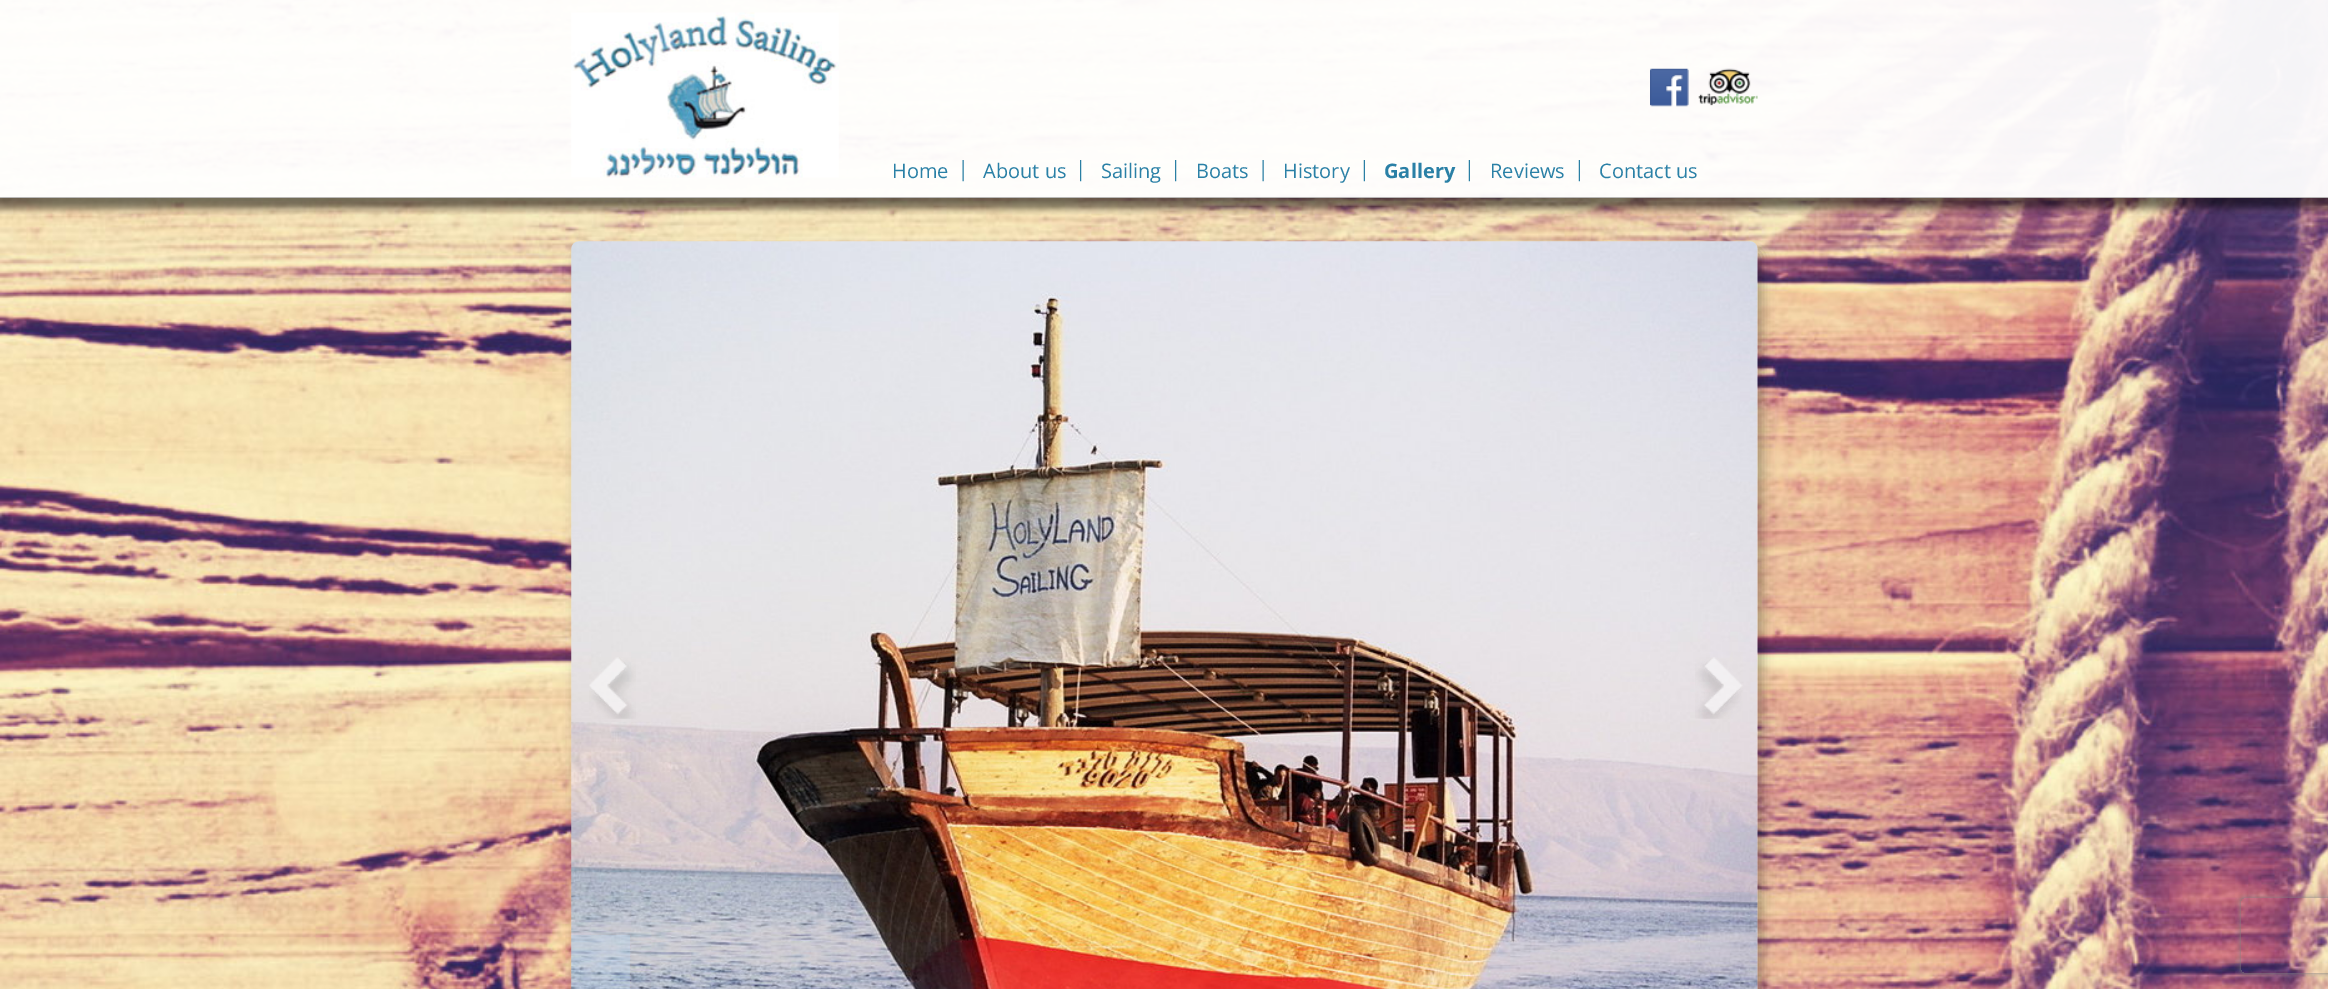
%!PS-Adobe-3.0
%%BoundingBox: 0 0 2328 989
%%LanguageLevel: 3
%%Pages: 1
%%EndComments
%%BeginProlog
/setink { dup -16 bitshift 255 div exch dup -8 bitshift 255 and 255 div exch 255 and 255 div setrgbcolor } def
/usefont { [ exch dup neg 0 0 3 -1 roll 0 0 ] selectfont } def
/setalpha { dup .setfillconstantalpha .setstrokeconstantalpha } def
/rrect { 5 dict begin { /r /h /w /y /x } { exch def } forall
  x r add y moveto x w add y 2 copy h add r arct x w add y h add x 1 index r arct
  x y h add x y r arct x y 2 copy exch w add exch r arct closepath end } def
/softshadow { 12 dict begin { /a /b /q /h /w /y /x } { exch def } forall gsave /was 0 def
  9 -2 -9 { dup b mul 4 div /e exch def 1 sub .425 mul 2.718 exch exp 1 add a .99 .min exch div /now exch def
    1 1 now sub 1 was sub div sub setalpha /was now def
    w h .min e 2 mul add 0 gt { x e sub y e sub w e 2 mul add h e 2 mul add
      q e add b .6 mul add w h .min 2 div e add .min 0 .max rrect fill } if } for grestore end } def
/drawimage { 5 dict begin { /h /w /y /x /name } { exch def } forall
  gsave x y translate w h scale
  w h 8 [w 0 0 h 0 0] name (r) file false 3 colorimage grestore end } def
%%EndProlog
%%BeginSetup
<< /PageSize [2328 989] /PageUsesTransparency true >> setpagedevice
%%EndSetup
%%Page: 1 1
0 .pushpdf14devicefilter
0 989 translate 1 -1 scale
4 setmiterlimit
16#FFFFFF setink
0 0 2328 989 rectfill
(img1.raw) 0 0 2328 989 drawimage
0.95 setalpha
0 0 2328 198 rectfill
1 setalpha
(img2.raw) 571 12 268 166 drawimage
(img3.raw) 1650 68 39 39 drawimage
(img4.raw) 1698 68 60 38 drawimage
(img5.raw) 962 160 2 22 drawimage
/OpenSans-Regular 20 usefont
16#2A80A6 setink
892 178 moveto (Home) show
(img6.raw) 1080 160 2 22 drawimage
983 178 moveto (About us) show
(img7.raw) 1175 160 2 22 drawimage
1101 178 moveto (Sailing) show
(img8.raw) 1262 160 2 22 drawimage
1196 178 moveto (Boats) show
(img9.raw) 1363 160 2 22 drawimage
1283 178 moveto (History) show
(img10.raw) 1468 160 2 22 drawimage
/OpenSans-Bold 20 usefont
1384 178 moveto (Gallery) show
(img11.raw) 1578 160 2 22 drawimage
/OpenSans-Regular 20 usefont
1490 178 moveto (Reviews) show
1599 178 moveto (Contact us) show
(img12.raw) 0 197 2328 18 drawimage
16#000000 setink
576 249 1187 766 8 6 0.3 softshadow
(img13.raw) 571 241 1187 748 drawimage
(img14.raw) 589 657 47 62 drawimage
(img15.raw) 1695 657 48 62 drawimage
(img16.raw) 571 935 59 54 drawimage
gsave
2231 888 moveto 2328 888 lineto 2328 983 lineto 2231 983 lineto closepath 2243.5 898 moveto 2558.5 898 lineto 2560 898 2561 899 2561 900.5 curveto 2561 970.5 lineto 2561 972 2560 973 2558.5 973 curveto 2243.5 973 lineto 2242 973 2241 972 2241 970.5 curveto 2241 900.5 lineto 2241 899 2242 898 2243.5 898 curveto closepath eoclip newpath
16#808080 setink
2241 898 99 75 2.5 3 1 softshadow
grestore
.poppdf14devicefilter showpage
%%EOF
